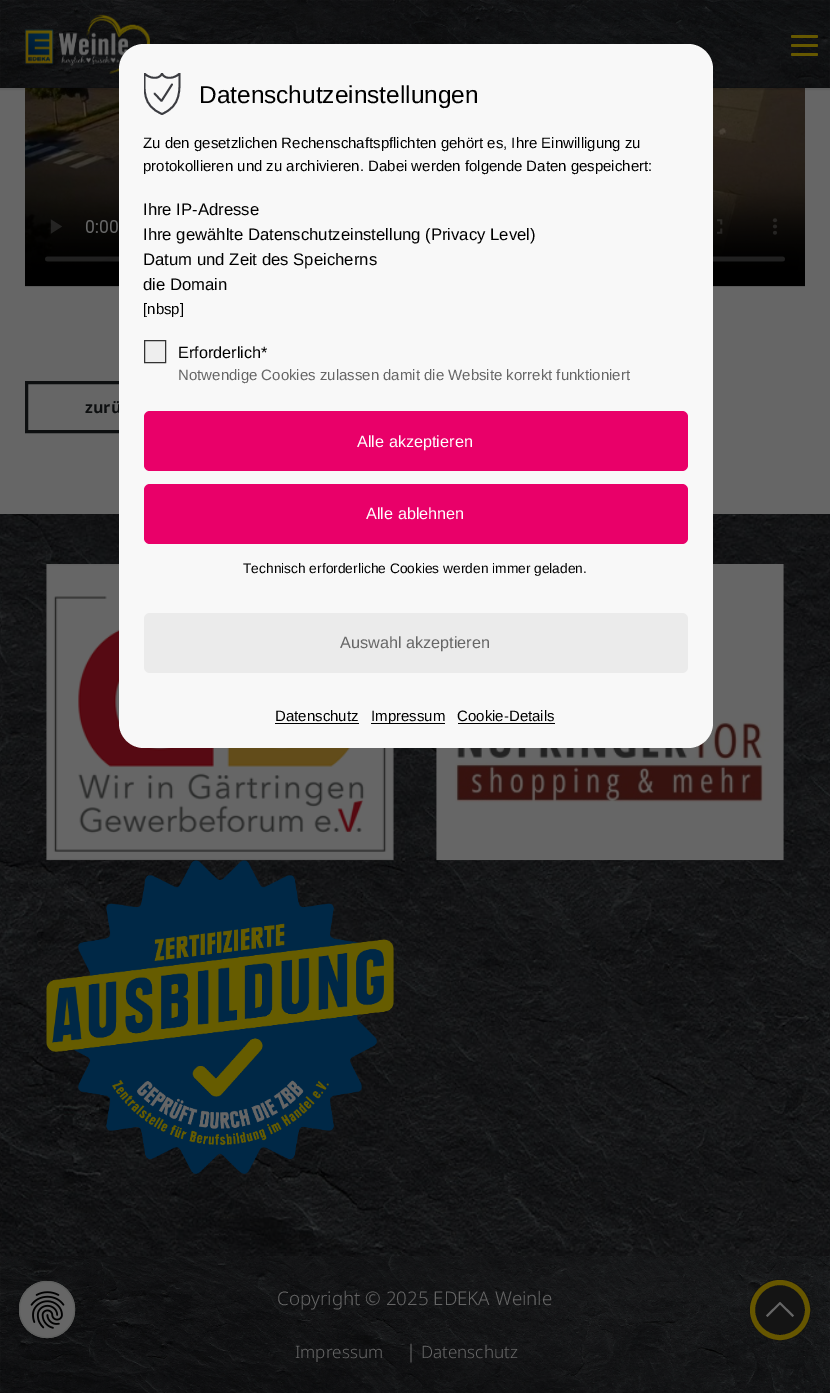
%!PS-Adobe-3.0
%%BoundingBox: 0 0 830 1393
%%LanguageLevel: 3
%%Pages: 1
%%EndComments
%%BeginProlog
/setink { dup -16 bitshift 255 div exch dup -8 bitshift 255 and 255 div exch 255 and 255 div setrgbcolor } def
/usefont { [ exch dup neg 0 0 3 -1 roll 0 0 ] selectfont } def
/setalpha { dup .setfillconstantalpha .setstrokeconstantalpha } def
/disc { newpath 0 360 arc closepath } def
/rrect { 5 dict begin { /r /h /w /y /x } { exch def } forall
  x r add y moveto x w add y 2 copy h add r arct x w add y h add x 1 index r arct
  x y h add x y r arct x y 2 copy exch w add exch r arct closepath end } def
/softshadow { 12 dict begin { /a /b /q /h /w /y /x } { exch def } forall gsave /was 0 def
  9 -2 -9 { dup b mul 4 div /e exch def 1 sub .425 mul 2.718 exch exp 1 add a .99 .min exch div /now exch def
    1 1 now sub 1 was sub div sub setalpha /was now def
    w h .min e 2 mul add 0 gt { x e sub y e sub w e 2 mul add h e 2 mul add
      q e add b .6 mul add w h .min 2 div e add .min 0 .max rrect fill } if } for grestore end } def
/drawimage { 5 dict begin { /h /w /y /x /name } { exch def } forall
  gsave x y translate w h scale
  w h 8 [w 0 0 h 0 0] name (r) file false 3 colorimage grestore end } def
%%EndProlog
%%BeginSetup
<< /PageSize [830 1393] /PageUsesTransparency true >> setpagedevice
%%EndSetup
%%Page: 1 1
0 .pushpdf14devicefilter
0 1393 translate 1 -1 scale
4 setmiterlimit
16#666666 setink
0 0 830 1393 rectfill
(img4.raw) 25 88 780 199 drawimage
16#000000 setink
-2 -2 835 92 0 1 0.1 softshadow
16#0D0F10 setink
0 87 830 1 rectfill
(img1.raw) 0 0 830 88 drawimage
(img2.raw) 25 14 125 60 drawimage
16#665800 setink
791 44 27 3 1.5 rrect fill
791 35 27 3 1.5 rrect fill
791 53 27 3 1.5 rrect fill
16#0D0F10 setink
3 setlinewidth
26.5 382.5 172 49 rectstroke
/NotoSans-Bold 16 usefont
85 413 moveto (zurü) show
(img5.raw) 0 514 830 742 drawimage
(img6.raw) 46 564 348 297 drawimage
(img7.raw) 436 564 348 297 drawimage
16#F8F8F8 setink
119 44 594 704 25 rrect fill
gsave
144 73 37 42 rectclip
16#3B3C41 setink
1.8 setlinewidth
1 setlinecap
1 setlinejoin
162 114 moveto 142 105.5 144.5 90.5 144.5 73.5 curveto 148.5 78 159 80.5 162 73.5 curveto 165 80.5 175.5 78 179.5 73.5 curveto 179.5 90.5 181.5 105.5 162 114 curveto closepath stroke
grestore
16#3B3C41 setink
1.8 setlinewidth
1 setlinecap
1 setlinejoin
154.5 93.5 moveto 161.5 101 lineto 172 84.5 lineto stroke
/LiberationSans-Regular 24.4 usefont
16#000000 setink
199 103 moveto (Datenschutzeinstellungen) show
/LiberationSans-Regular 15 usefont
143 148 moveto (Zu den gesetzlichen Rechenschaftspflichten gehört es, Ihre Einwilligung zu) show
143 171 moveto (protokollieren und zu archivieren. Dabei werden folgende Daten gespeichert:) show
/LiberationSans-Regular 16.7 usefont
[
    [(Ihre IP-Adresse) 143 215]
    [(Ihre gewählte Datenschutzeinstellung \(Privacy Level\)) 143 240]
    [(Datum und Zeit des Speicherns) 143 265]
    [(die Domain) 143 290]
] { aload pop moveto show } forall
/LiberationSans-Regular 15 usefont
143 314 moveto ([nbsp]) show
16#EEEEEE setink
144.5 340.5 moveto 165.5 340.5 lineto 165.5 362.5 lineto 144.5 362.5 lineto closepath gsave fill grestore
16#333333 setink
1 setlinewidth
0 setlinecap
0 setlinejoin
stroke
/LiberationSans-Regular 16.25 usefont
16#000000 setink
178 358 moveto (Erforderlich*) show
/LiberationSans-Regular 15 usefont
16#666666 setink
178 380 moveto (Notwendige Cookies zulassen damit die Website korrekt funktioniert) show
16#E90069 setink
144 411 544 60 6 rrect fill
/LiberationSans-Regular 16.25 usefont
16#FFFFFF setink
357 447 moveto (Alle akzeptieren) show
16#E90069 setink
144 484 544 60 6 rrect fill
16#FFFFFF setink
366 519 moveto (Alle ablehnen) show
/LiberationSans-Regular 13.75 usefont
16#000000 setink
243 573 moveto (Technisch erforderliche Cookies werden immer geladen.) show
16#EBEBEB setink
144 613 544 60 6 rrect fill
/LiberationSans-Regular 16.25 usefont
16#666666 setink
340 648 moveto (Auswahl akzeptieren) show
/LiberationSans-Regular 15 usefont
16#000000 setink
275 721 moveto (Datenschutz) show
275 723 84 1 rectfill
371 723 74 1 rectfill
371 721 moveto (Impressum) show
457 721 moveto (Cookie-Details) show
458 723 97 1 rectfill
(img9.raw) 0 1256 830 137 drawimage
16#666666 setink
19 1281 56 57 28 rrect fill
(img3.raw) 30 1291 35 38 drawimage
16#5E5F5E setink
19.5 1281.5 55 56 27.5 rrect stroke
(img8.raw) 46 860 348 314 drawimage
/NotoSans-Light 18.75 usefont
16#666666 setink
277 1305 moveto (Copyright © 2025 EDEKA Weinle) show
/NotoSans-Light 17 usefont
295 1358 moveto (Impressum) show
/NotoSans-Light 18.75 usefont
406 1358 moveto (|) show
/NotoSans-Light 17 usefont
421 1358 moveto (Datenschutz) show
16#141414 setink
780 1310 31 disc fill
16#666666 setink
792.5 1317 moveto 780 1304.5 lineto 767.5 1317 lineto 766 1315.5 lineto 780 1302 lineto 794 1315.5 lineto closepath fill
16#665600 setink
5 setlinewidth
780 1337.5 moveto 765 1337.5 752.5 1325 752.5 1310 curveto 752.5 1295 765 1282.5 780 1282.5 curveto 795 1282.5 807.5 1295 807.5 1310 curveto 807.5 1325 795 1337.5 780 1337.5 curveto stroke
.poppdf14devicefilter showpage
%%EOF
